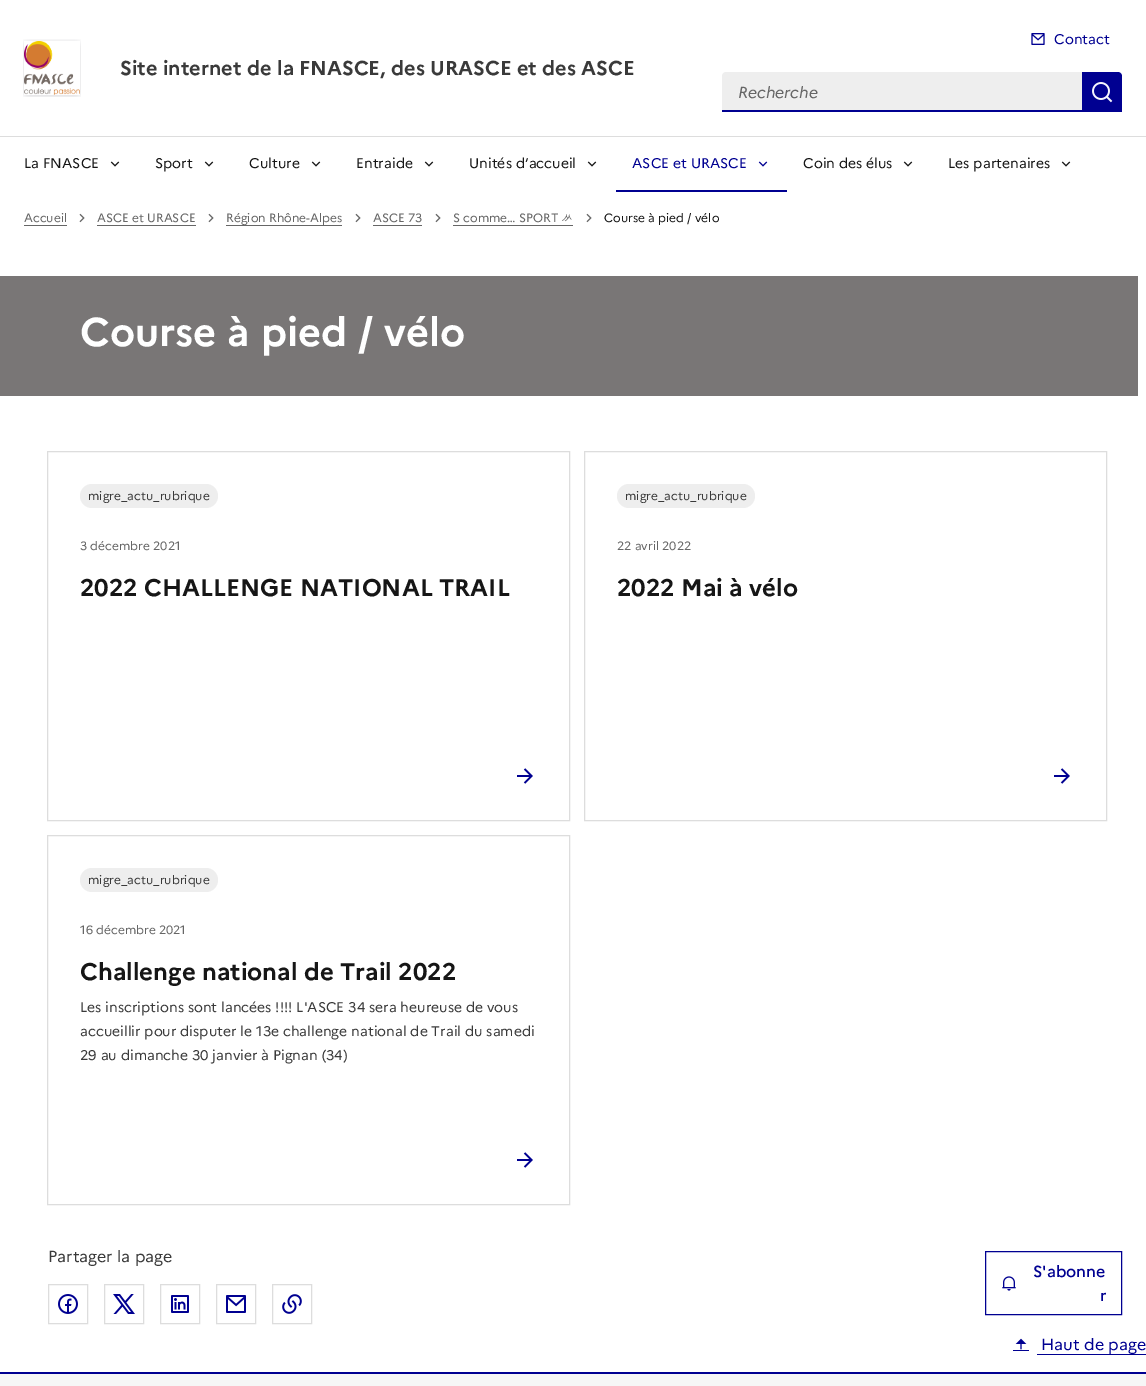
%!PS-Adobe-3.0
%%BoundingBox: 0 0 1146 1386
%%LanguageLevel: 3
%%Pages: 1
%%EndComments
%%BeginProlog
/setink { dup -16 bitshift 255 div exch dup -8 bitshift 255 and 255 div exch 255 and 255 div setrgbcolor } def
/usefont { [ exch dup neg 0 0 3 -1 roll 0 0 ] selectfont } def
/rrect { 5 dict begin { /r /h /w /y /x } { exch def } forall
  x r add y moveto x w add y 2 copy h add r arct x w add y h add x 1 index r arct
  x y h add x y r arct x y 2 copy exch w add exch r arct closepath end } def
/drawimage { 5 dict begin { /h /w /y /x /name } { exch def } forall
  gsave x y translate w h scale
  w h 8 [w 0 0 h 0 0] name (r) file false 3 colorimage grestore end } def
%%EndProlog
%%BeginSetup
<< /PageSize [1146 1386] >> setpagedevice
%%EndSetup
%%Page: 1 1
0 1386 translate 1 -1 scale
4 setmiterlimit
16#FFFFFF setink
0 0 1146 1386 rectfill
(img1.raw) 23 39 58 58 drawimage
/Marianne-Bold 20 usefont
16#3A3A3A setink
120 75 moveto (Site internet de la FNASCE, des URASCE et des ASCE) show
(img2.raw) 1031 33 14 12 drawimage
/Marianne-Regular 14 usefont
16#000091 setink
1054 44 moveto (Contact) show
16#EEEEEE setink
726 72 moveto 1082 72 lineto 1082 112 lineto 722 112 lineto 722 76 lineto 722 74 724 72 726 72 curveto closepath fill
16#000091 setink
722 110 360 2 rectfill
/Marianne-Italic 16 usefont
16#666666 setink
738 98 moveto (Recherche) show
16#000091 setink
1082 72 moveto 1118 72 lineto 1120 72 1122 74 1122 76 curveto 1122 112 lineto 1082 112 lineto closepath fill
(img3.raw) 1092 82 21 21 drawimage
16#DDDDDD setink
0 136 1146 1 rectfill
/Marianne-Regular 14 usefont
16#161616 setink
24 168 moveto (La FNASCE) show
(img4.raw) 110 161 10 6 drawimage
155 168 moveto (Sport) show
(img4.raw) 204 161 10 6 drawimage
249 168 moveto (Culture) show
(img4.raw) 311 161 10 6 drawimage
356 168 moveto (Entraide) show
(img4.raw) 424 161 10 6 drawimage
469 168 moveto (Unités d’accueil) show
(img4.raw) 587 161 10 6 drawimage
16#000091 setink
632 168 moveto (ASCE et URASCE) show
(img5.raw) 758 161 10 6 drawimage
616 190 171 2 rectfill
16#161616 setink
803 168 moveto (Coin des élus) show
(img4.raw) 903 161 10 6 drawimage
948 168 moveto (Les partenaires) show
(img4.raw) 1061 161 10 6 drawimage
/Marianne-Regular 12 usefont
16#666666 setink
24 222 moveto (Accueil) show
24 225 43 1 rectfill
(img6.raw) 79 213 6 10 drawimage
97 222 moveto (ASCE et URASCE) show
97 225 99 1 rectfill
(img6.raw) 208 213 6 10 drawimage
226 222 moveto (Région Rhône-Alpes) show
226 225 116 1 rectfill
(img6.raw) 355 213 6 10 drawimage
373 222 moveto (ASCE 73) show
373 225 49 1 rectfill
(img6.raw) 435 213 6 10 drawimage
453 222 moveto (S comme… SPORT) show
453 225 120 1 rectfill
/WenQuanYiZenHei-Medium 12 usefont
561 222 moveto (ᄽ) show
(img6.raw) 586 213 6 10 drawimage
/Marianne-Regular 12 usefont
16#161616 setink
604 222 moveto (Course à pied / vélo) show
16#797676 setink
0 276 1138 120 rectfill
/Marianne-Bold 40 usefont
16#FFFFFF setink
80 346 moveto (Course à pied / vélo) show
16#DDDDDD setink
47.5 451.5 522 369 rectstroke
16#EEEEEE setink
80 484 138 24 12 rrect fill
/Marianne-Regular 12 usefont
16#3A3A3A setink
88 500 moveto (migre_actu_rubrique) show
16#666666 setink
80 550 moveto (3 décembre 2021) show
/Marianne-Bold 24 usefont
16#161616 setink
80 596 moveto (2022 CHALLENGE NATIONAL TRAIL) show
(img7.raw) 517 768 16 16 drawimage
16#DDDDDD setink
584.5 451.5 522 369 rectstroke
16#EEEEEE setink
617 484 138 24 12 rrect fill
/Marianne-Regular 12 usefont
16#3A3A3A setink
625 500 moveto (migre_actu_rubrique) show
16#666666 setink
617 550 moveto (22 avril 2022) show
/Marianne-Bold 24 usefont
16#161616 setink
617 596 moveto (2022 Mai à vélo) show
(img7.raw) 1054 768 16 16 drawimage
16#DDDDDD setink
47.5 835.5 522 369 rectstroke
16#EEEEEE setink
80 868 138 24 12 rrect fill
/Marianne-Regular 12 usefont
16#3A3A3A setink
88 884 moveto (migre_actu_rubrique) show
16#666666 setink
80 934 moveto (16 décembre 2021) show
/Marianne-Bold 24 usefont
16#161616 setink
80 980 moveto (Challenge national de Trail 2022) show
/Marianne-Regular 14 usefont
16#3A3A3A setink
[
    [(Les inscriptions sont lancées !!!! L'ASCE 34 sera heureuse de vous) 80 1012]
    [(accueillir pour disputer le 13e challenge national de Trail du samedi) 80 1036]
    [(29 au dimanche 30 janvier à Pignan \(34\)) 80 1060]
] { aload pop moveto show } forall
(img7.raw) 517 1152 16 16 drawimage
/Marianne-Regular 16 usefont
48 1262 moveto (Partager la page) show
16#DDDDDD setink
48.5 1284.5 39 39 rectstroke
(img8.raw) 58 1294 20 20 drawimage
104.5 1284.5 39 39 rectstroke
(img9.raw) 113 1294 22 20 drawimage
160.5 1284.5 39 39 rectstroke
(img10.raw) 171 1295 18 18 drawimage
216.5 1284.5 39 39 rectstroke
(img11.raw) 226 1295 20 18 drawimage
272.5 1284.5 39 39 rectstroke
(img12.raw) 282 1294 20 20 drawimage
16#000091 setink
985.5 1251.5 136 63 rectstroke
/Marianne-Medium 16 usefont
1033 1277 moveto (S'abonne) show
(img13.raw) 1002 1276 14 15 drawimage
1100 1301 moveto (r) show
1013 1350 16 1 rectfill
1037 1354 109 1 rectfill
(img14.raw) 1015 1338 12 12 drawimage
/Marianne-Regular 16 usefont
1041 1350 moveto (Haut de page) show
0 1372 1146 2 rectfill
16#F6F6F6 setink
0 1374 1146 12 rectfill
showpage
%%EOF
